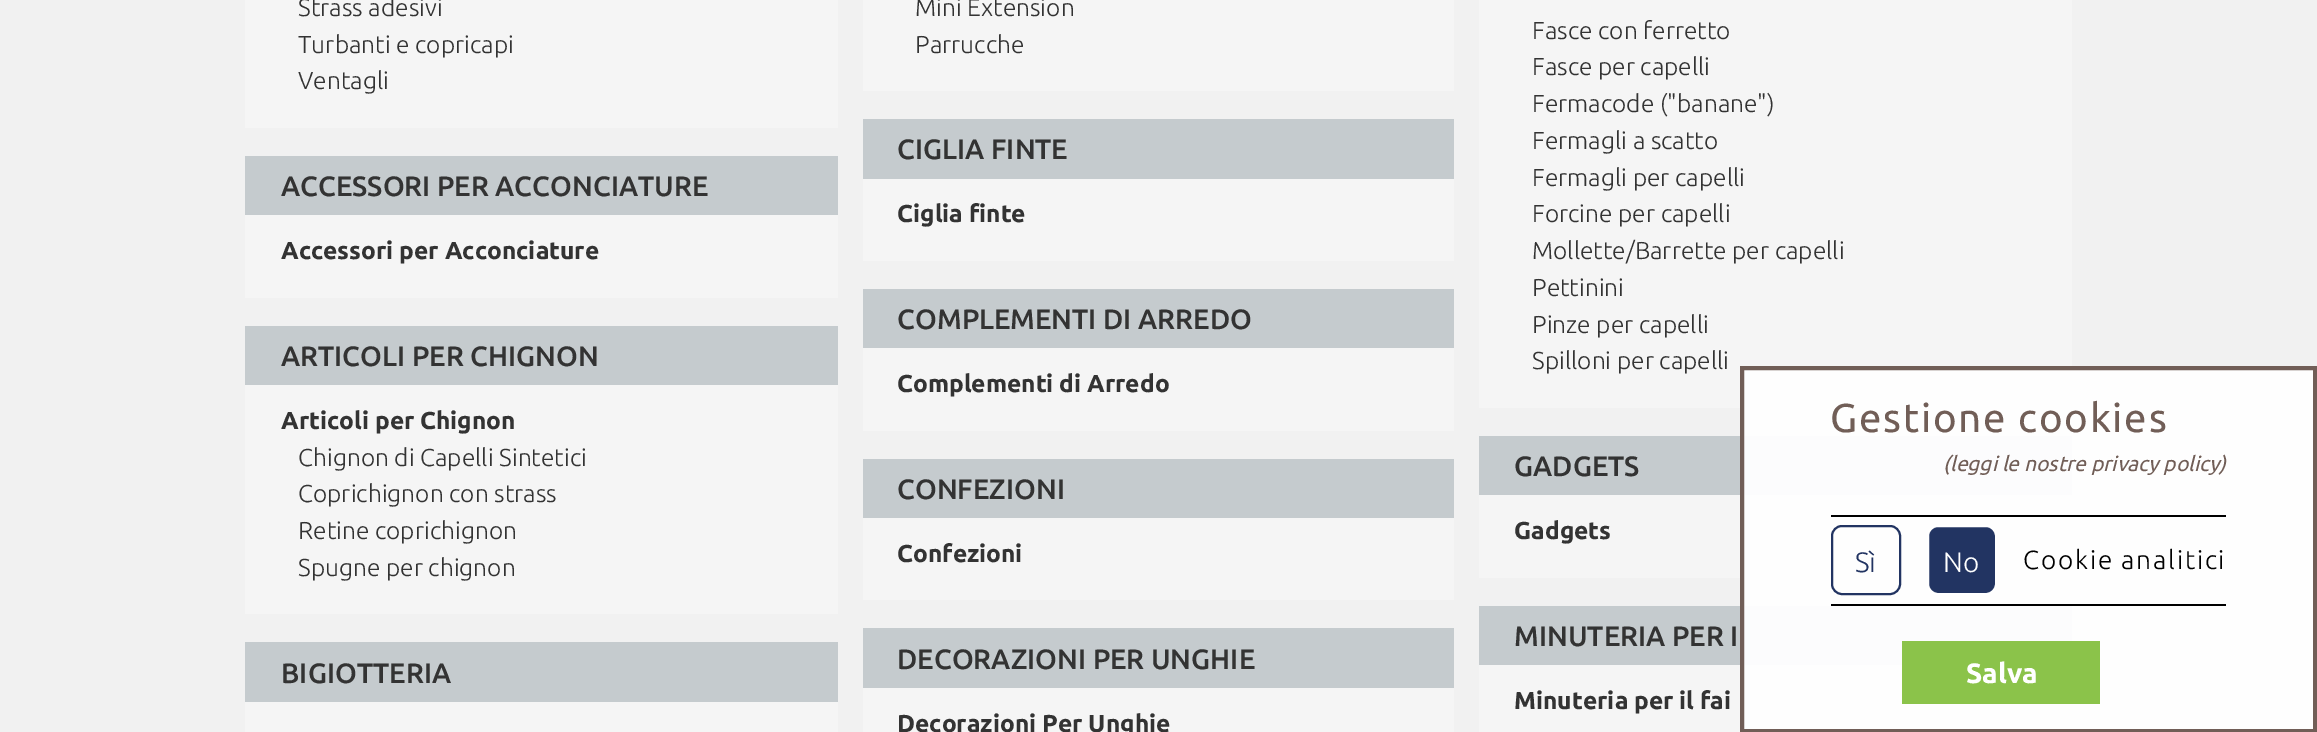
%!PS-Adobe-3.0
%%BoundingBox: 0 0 2317 732
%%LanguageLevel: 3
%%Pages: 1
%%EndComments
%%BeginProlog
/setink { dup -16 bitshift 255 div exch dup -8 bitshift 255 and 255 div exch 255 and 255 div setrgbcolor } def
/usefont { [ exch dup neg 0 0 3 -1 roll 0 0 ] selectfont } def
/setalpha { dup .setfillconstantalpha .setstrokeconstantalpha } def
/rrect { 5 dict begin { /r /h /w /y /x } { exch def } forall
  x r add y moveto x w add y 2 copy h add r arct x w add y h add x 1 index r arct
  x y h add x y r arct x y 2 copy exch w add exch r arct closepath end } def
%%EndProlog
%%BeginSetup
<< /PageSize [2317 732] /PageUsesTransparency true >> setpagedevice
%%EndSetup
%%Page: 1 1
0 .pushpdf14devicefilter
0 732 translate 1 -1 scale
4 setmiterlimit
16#F1F1F1 setink
0 0 2317 732 rectfill
16#F5F5F5 setink
245 0 593 128 rectfill
/Ubuntu-Light 24.5 usefont
16#333333 setink
[
    [(Strass adesivi) 298 16]
    [(Turbanti e copricapi) 298 53]
    [(Ventagli) 298 89]
] { aload pop moveto show } forall
16#F5F5F5 setink
863 0 591 91 rectfill
16#333333 setink
915 16 moveto (Mini Extension) show
915 53 moveto (Parrucche) show
16#F5F5F5 setink
1479 0 593 408 rectfill
16#333333 setink
[
    [(Fasce con ferretto) 1532 39]
    [(Fasce per capelli) 1532 75]
    [(Fermacode \("banane"\)) 1532 112]
    [(Fermagli a scatto) 1532 149]
    [(Fermagli per capelli) 1532 186]
    [(Forcine per capelli) 1532 222]
    [(Mollette/Barrette per capelli) 1532 259]
    [(Pettinini) 1532 296]
    [(Pinze per capelli) 1532 333]
    [(Spilloni per capelli) 1532 369]
] { aload pop moveto show } forall
16#F5F5F5 setink
245 215 593 83 rectfill
16#C5CBCE setink
245 156 593 59 rectfill
/Ubuntu-Medium 28 usefont
16#333333 setink
281 196 moveto (ACCESSORI PER ACCONCIATURE) show
/Ubuntu-Bold 24.5 usefont
281 259 moveto (Accessori per Acconciature) show
16#F5F5F5 setink
863 179 591 82 rectfill
16#C5CBCE setink
863 119 591 60 rectfill
/Ubuntu-Medium 28 usefont
16#333333 setink
897 159 moveto (CIGLIA FINTE) show
/Ubuntu-Bold 24.5 usefont
897 222 moveto (Ciglia finte) show
16#F5F5F5 setink
245 385 593 229 rectfill
16#C5CBCE setink
245 326 593 59 rectfill
/Ubuntu-Medium 28 usefont
16#333333 setink
281 366 moveto (ARTICOLI PER CHIGNON) show
/Ubuntu-Bold 24.5 usefont
281 429 moveto (Articoli per Chignon) show
/Ubuntu-Light 24.5 usefont
[
    [(Chignon di Capelli Sintetici) 298 466]
    [(Coprichignon con strass) 298 502]
    [(Retine coprichignon) 298 539]
    [(Spugne per chignon) 298 576]
] { aload pop moveto show } forall
16#F5F5F5 setink
863 348 591 83 rectfill
16#C5CBCE setink
863 289 591 59 rectfill
/Ubuntu-Medium 28 usefont
16#333333 setink
897 329 moveto (COMPLEMENTI DI ARREDO) show
/Ubuntu-Bold 24.5 usefont
897 392 moveto (Complementi di Arredo) show
16#F5F5F5 setink
1479 495 593 83 rectfill
16#C5CBCE setink
1479 436 593 59 rectfill
/Ubuntu-Medium 28 usefont
16#333333 setink
1514 476 moveto (GADGETS) show
/Ubuntu-Bold 24.5 usefont
1514 539 moveto (Gadgets) show
16#F5F5F5 setink
863 518 591 82 rectfill
16#C5CBCE setink
863 459 591 59 rectfill
/Ubuntu-Medium 28 usefont
16#333333 setink
897 499 moveto (CONFEZIONI) show
/Ubuntu-Bold 24.5 usefont
897 562 moveto (Confezioni) show
16#F5F5F5 setink
245 702 593 30 rectfill
16#C5CBCE setink
245 642 593 60 rectfill
/Ubuntu-Medium 28 usefont
16#333333 setink
281 683 moveto (BIGIOTTERIA) show
16#F5F5F5 setink
863 688 591 44 rectfill
16#C5CBCE setink
863 628 591 60 rectfill
16#333333 setink
897 669 moveto (DECORAZIONI PER UNGHIE) show
/Ubuntu-Bold 24.5 usefont
897 732 moveto (Decorazioni Per Unghie) show
16#F5F5F5 setink
1479 665 593 67 rectfill
16#C5CBCE setink
1479 606 593 59 rectfill
/Ubuntu-Medium 28 usefont
16#333333 setink
1514 646 moveto (MINUTERIA PER I) show
/Ubuntu-Bold 24.5 usefont
1514 709 moveto (Minuteria per il fai) show
0.95 setalpha
16#FFFFFF setink
1742 368 moveto 2315 368 lineto 2315 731 lineto 1742 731 lineto closepath fill
1 setalpha
16#715E57 setink
4 setlinewidth
1742 368 moveto 2315 368 lineto 2315 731 lineto 1742 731 lineto closepath stroke
/Ubuntu-Regular 40.25 usefont
1830 432 moveto 1.75 0 (Gestione cookies) ashow
/Ubuntu-Italic 21 usefont
1943 471 moveto (\(leggi le nostre privacy policy\)) show
16#000000 setink
1831 515 395 2 rectfill
16#223462 setink
2 setlinewidth
1832 526 68 68 10 rrect stroke
/Ubuntu-Light 28 usefont
1855 572 moveto (Sì) show
1928 526 68 68 10 rrect gsave fill grestore
16#FFFFFF setink
stroke
1943 572 moveto (No) show
/Ubuntu-Light 26.25 usefont
16#000000 setink
2023 569 moveto 1.75 0 (Cookie analitici) ashow
1831 604 395 2 rectfill
16#8BC34A setink
1902 641 198 63 rectfill
/Ubuntu-Bold 28 usefont
16#FFFFFF setink
1966 683 moveto (Salva) show
.poppdf14devicefilter showpage
%%EOF
